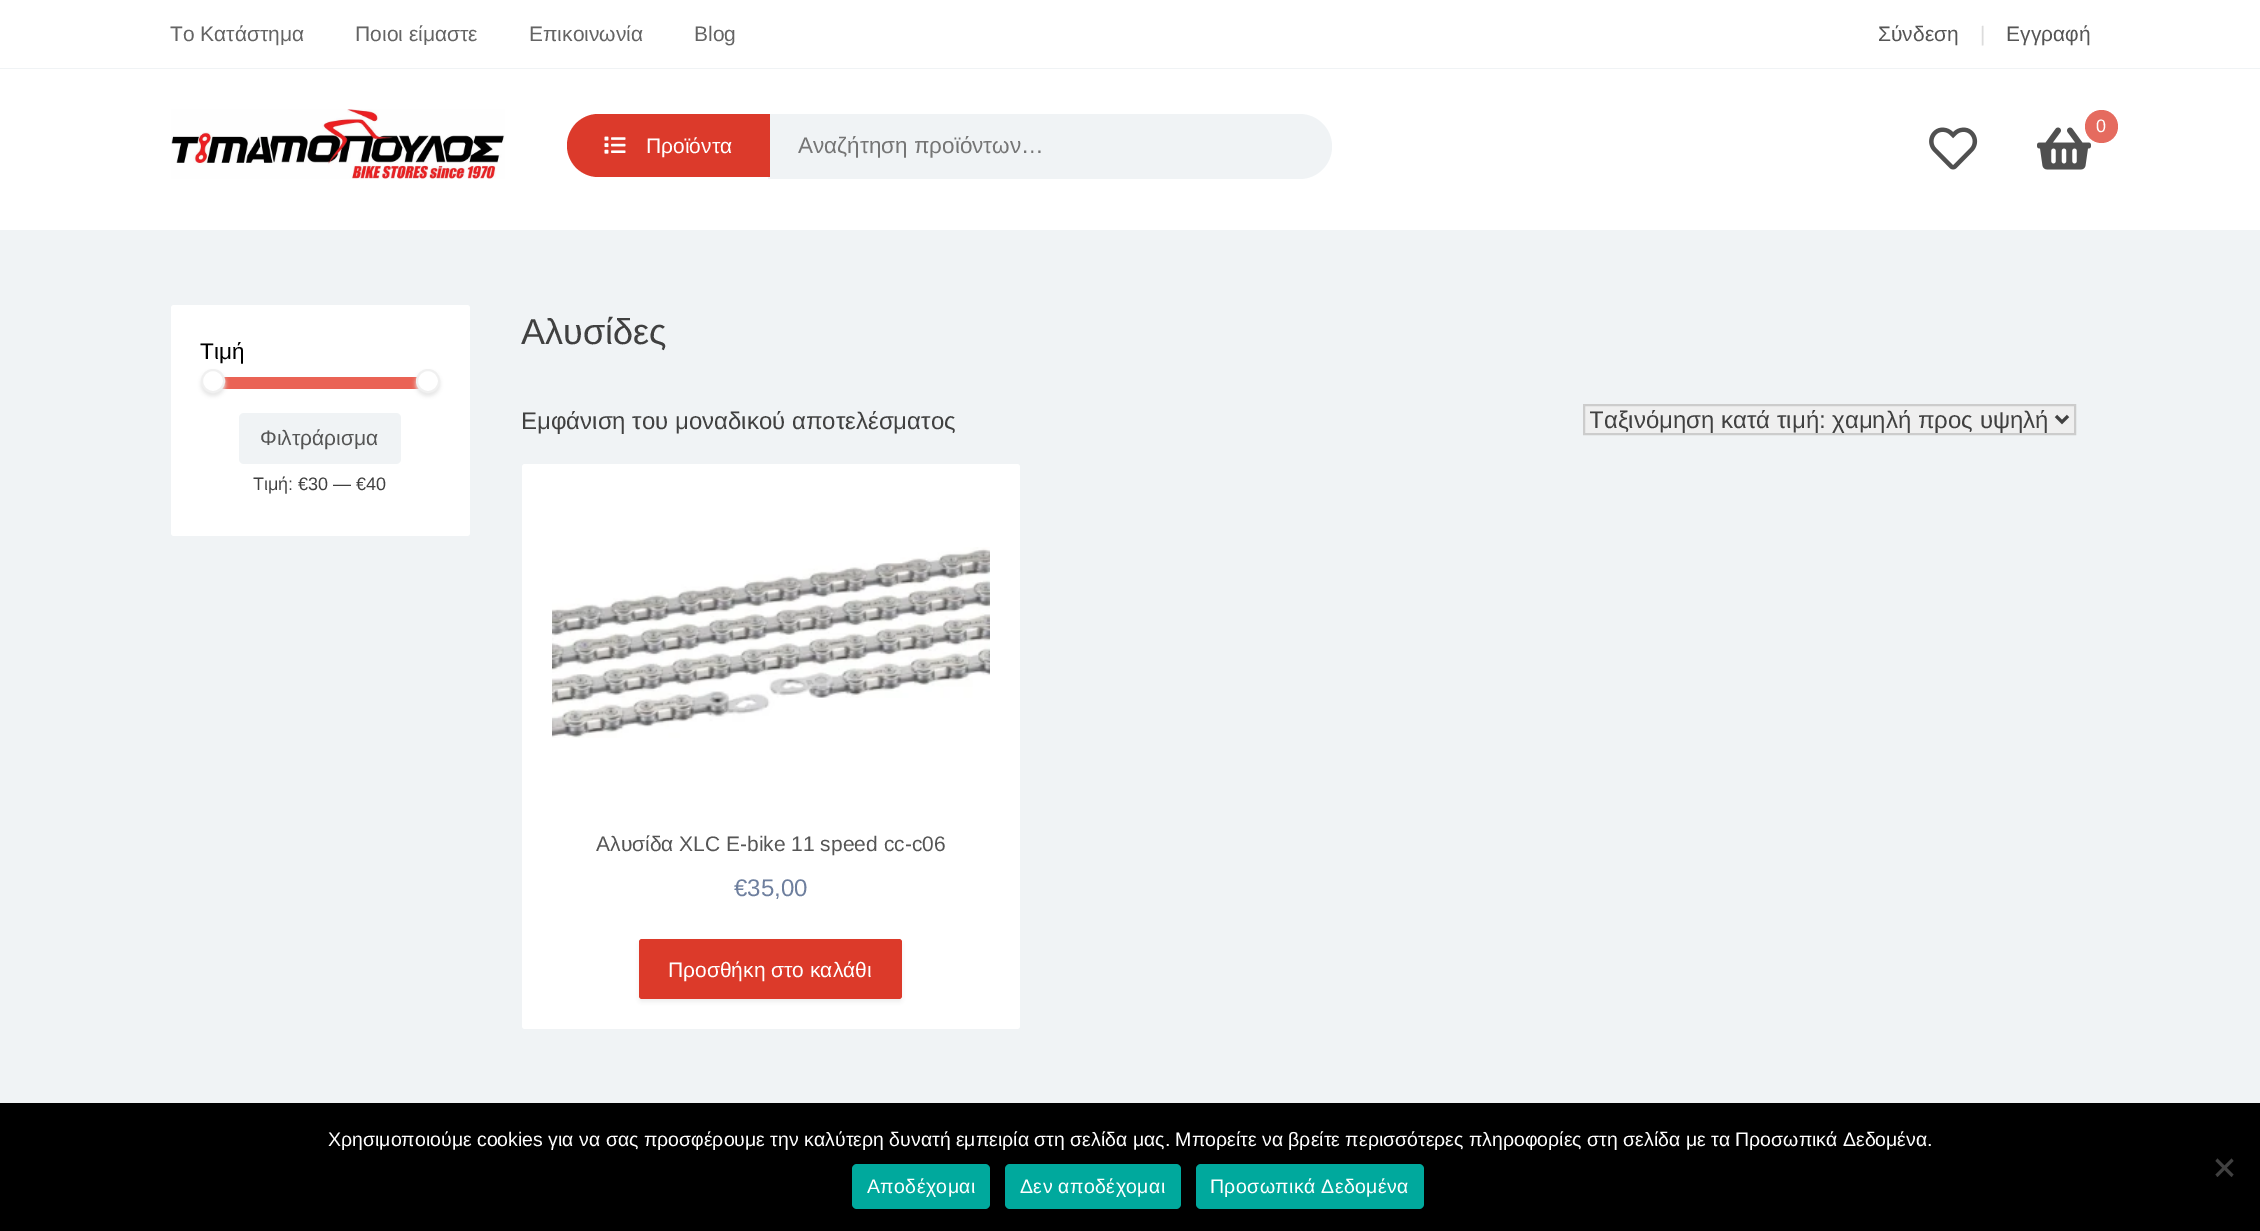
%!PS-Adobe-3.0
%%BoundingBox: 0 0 2260 1231
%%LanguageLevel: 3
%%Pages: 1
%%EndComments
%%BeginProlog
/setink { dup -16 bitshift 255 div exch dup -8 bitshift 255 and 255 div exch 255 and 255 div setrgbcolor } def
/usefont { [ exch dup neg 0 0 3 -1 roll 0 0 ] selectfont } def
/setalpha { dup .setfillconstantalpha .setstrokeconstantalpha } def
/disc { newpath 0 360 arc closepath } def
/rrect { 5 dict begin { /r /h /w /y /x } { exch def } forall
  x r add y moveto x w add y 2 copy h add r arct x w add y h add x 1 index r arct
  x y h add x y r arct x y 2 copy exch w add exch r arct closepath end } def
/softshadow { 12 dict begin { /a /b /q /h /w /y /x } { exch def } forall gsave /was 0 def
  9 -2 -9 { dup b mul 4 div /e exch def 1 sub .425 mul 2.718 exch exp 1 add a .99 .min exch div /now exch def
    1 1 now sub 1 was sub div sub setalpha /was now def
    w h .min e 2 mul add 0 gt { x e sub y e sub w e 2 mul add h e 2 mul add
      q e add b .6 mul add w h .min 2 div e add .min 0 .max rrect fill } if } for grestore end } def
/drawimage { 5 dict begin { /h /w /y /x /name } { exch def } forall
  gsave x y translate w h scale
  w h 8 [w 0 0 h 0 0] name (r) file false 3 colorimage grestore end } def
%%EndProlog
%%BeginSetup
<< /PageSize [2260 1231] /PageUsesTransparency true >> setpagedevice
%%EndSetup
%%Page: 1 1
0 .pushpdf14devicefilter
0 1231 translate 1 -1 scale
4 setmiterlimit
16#F0F3F5 setink
0 0 2260 1231 rectfill
16#FFFFFF setink
0 0 2260 68 rectfill
/LiberationSans-Regular 21 usefont
16#646464 setink
[
    [(Το Κατάστημα) 170 41]
    [(Ποιοι είμαστε) 355 41]
    [(Επικοινωνία) 529 41]
    [(Blog) 694 41]
] { aload pop moveto show } forall
16#555555 setink
1878 41 moveto (Σύνδεση) show
16#DCDCDC setink
1980 41 moveto (|) show
16#555555 setink
2006 41 moveto (Εγγραφή) show
16#FFFFFF setink
0 69 2260 161 rectfill
(img1.raw) 171 109 334 70 drawimage
(img2.raw) 1929 127 49 43 drawimage
(img3.raw) 2037 127 54 43 drawimage
16#E56B5F setink
2101.5 126.5 16.5 disc fill
/LiberationSans-Regular 18 usefont
16#FFFFFF setink
2096 132 moveto (0) show
16#F0F3F5 setink
768 114 moveto 1299.5 114 lineto 1317.5 114 1332 128.5 1332 146.5 curveto 1332 164.5 1317.5 179 1299.5 179 curveto 768 179 lineto closepath fill
16#DC3A2B setink
598.5 114 moveto 770 114 lineto 770 177 lineto 598.5 177 lineto 581 177 567 163 567 145.5 curveto 567 128 581 114 598.5 114 curveto closepath fill
(img4.raw) 604 136 22 18 drawimage
/LiberationSans-Regular 21 usefont
16#FFFFFF setink
646 153 moveto (Προϊόντα) show
/LiberationSans-Regular 22.5 usefont
16#757575 setink
798 153 moveto (Αναζήτηση προϊόντων…) show
16#FFFFFF setink
171 305 299 231 3 rrect fill
16#000000 setink
200 359 moveto (Τιμή) show
16#EA6355 setink
221 377 199 12 rectfill
16#E6E6E6 setink
201 372 24 24 12 2 1 softshadow
16#FFFFFF setink
213 381 11 disc gsave fill grestore
16#F0F0F0 setink
2 setlinewidth
stroke
16#E6E6E6 setink
416 372 24 24 12 2 1 softshadow
16#FFFFFF setink
428 381 11 disc gsave fill grestore
16#F0F0F0 setink
stroke
16#F0F3F5 setink
239 413 162 51 5 rrect fill
/LiberationSans-Regular 21 usefont
16#555555 setink
260 445 moveto (Φιλτράρισμα) show
/LiberationSans-Regular 18 usefont
16#404040 setink
253 490 moveto (Τιμή: €30 — €40) show
/LiberationSans-Regular 36 usefont
521 344 moveto (Αλυσίδες) show
/LiberationSans-Regular 24 usefont
521 429 moveto (Εμφάνιση του μοναδικού αποτελέσματος) show
16#EFEFEF setink
1584 405 moveto 2075 405 lineto 2075 434 lineto 1584 434 lineto closepath gsave fill grestore
16#CCCCCC setink
stroke
16#404040 setink
3 setlinewidth
2056 416 moveto 2062 422 lineto 2068 416 lineto stroke
gsave
1590 405 461 29 rectclip
1589 428 moveto (Ταξινόμηση κατά τιμή: χαμηλή προς υψηλή) show
grestore
16#FFFFFF setink
522 464 498 565 3 rrect fill
(img5.raw) 552 547 438 191 drawimage
/LiberationSans-Regular 21 usefont
16#555555 setink
596 851 moveto (Αλυσίδα XLC E-bike 11 speed cc-c06) show
/LiberationSans-Regular 24 usefont
16#6E7F9E setink
734 896 moveto (€35,00) show
16#EEEEEE setink
639 942 263 60 3 2 1 softshadow
16#DC3A2A setink
639 939 263 60 3 rrect fill
/LiberationSans-Regular 21 usefont
16#FFFFFF setink
668 977 moveto (Προσθήκη στο καλάθι) show
16#000000 setink
0 1103 2260 128 rectfill
/LiberationSans-Regular 19.5 usefont
16#FFFFFF setink
328 1146 moveto (Χρησιμοποιούμε cookies για να σας προσφέρουμε την καλύτερη δυνατή εμπειρία στη σελίδα μας. Μπορείτε να βρείτε περισσότερες πληροφορίες στη σελίδα με τα Προσωπικά Δεδομένα.) show
16#404040 setink
2231.5 1158.5 moveto 2233.5 1161 lineto 2217.5 1177 lineto 2215.5 1174.5 lineto closepath fill
2215.5 1161 moveto 2217.5 1158.5 lineto 2233.5 1174.5 lineto 2231.5 1177 lineto closepath fill
16#00A99D setink
852 1164 138 45 5 rrect fill
16#FFFFFF setink
867 1193 moveto 0.4 0 (Αποδέχομαι) ashow
16#00A99D setink
1005 1164 176 45 5 rrect fill
16#FFFFFF setink
1020 1193 moveto 0.4 0 (Δεν αποδέχομαι) ashow
16#00A99D setink
1196 1164 228 45 5 rrect fill
16#FFFFFF setink
1210 1193 moveto 0.4 0 (Προσωπικά Δεδομένα) ashow
.poppdf14devicefilter showpage
%%EOF
